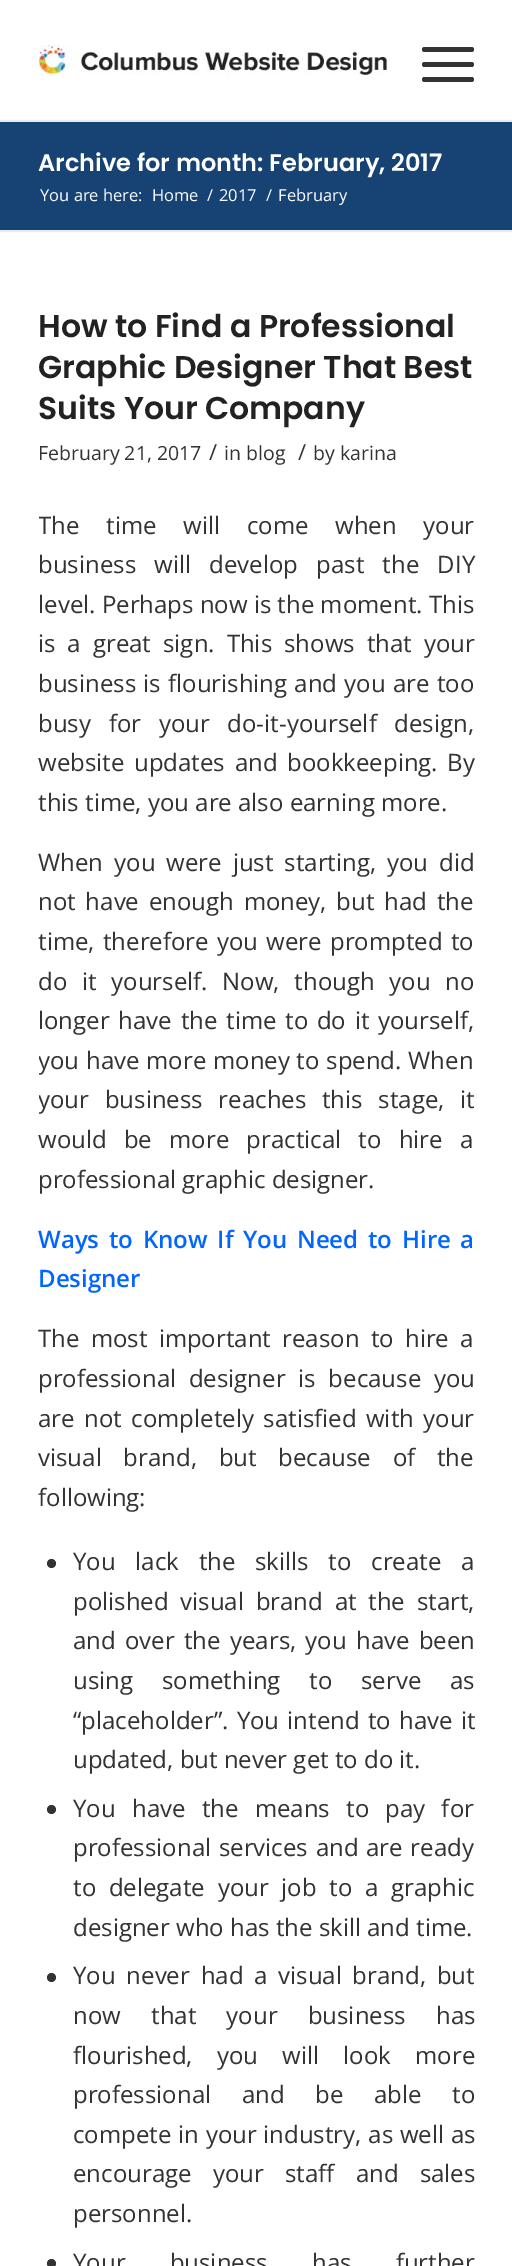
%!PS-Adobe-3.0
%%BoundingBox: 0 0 512 2266
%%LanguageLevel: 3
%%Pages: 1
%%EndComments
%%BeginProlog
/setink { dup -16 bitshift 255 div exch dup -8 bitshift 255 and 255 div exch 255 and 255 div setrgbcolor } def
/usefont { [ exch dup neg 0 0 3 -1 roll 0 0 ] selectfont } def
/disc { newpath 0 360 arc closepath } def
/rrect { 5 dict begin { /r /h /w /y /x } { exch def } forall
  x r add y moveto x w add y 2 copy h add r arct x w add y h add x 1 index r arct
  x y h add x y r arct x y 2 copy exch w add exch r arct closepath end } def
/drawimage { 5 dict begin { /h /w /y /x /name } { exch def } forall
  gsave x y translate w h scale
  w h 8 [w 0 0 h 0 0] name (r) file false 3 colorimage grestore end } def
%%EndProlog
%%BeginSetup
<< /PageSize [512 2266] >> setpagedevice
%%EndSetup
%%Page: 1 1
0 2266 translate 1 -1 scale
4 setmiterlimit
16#FFFFFF setink
0 0 512 2266 rectfill
16#EBEBEB setink
0 120 512 2 rectfill
(img1.raw) 39 45 348 30 drawimage
16#333333 setink
422 62 52 5 2.5 rrect fill
422 47 52 5 2.5 rrect fill
422 77 52 5 2.5 rrect fill
16#174374 setink
0 122 512 108 rectfill
/Poppins-SemiBold 24 usefont
16#FFFFFF setink
38 171 moveto (Archive for month: February, 2017) show
/OpenSans-Regular 16.5 usefont
[
    [(You are here:) 40 201]
    [(Home) 152 201]
    [(/) 207 201]
    [(2017) 219 201]
    [(/) 266 201]
    [(February) 278 201]
] { aload pop moveto show } forall
16#EBEBEB setink
0 230 512 2 rectfill
/Poppins-SemiBold 31.5 usefont
16#222222 setink
[
    [(How to Find a Professional) 38 337]
    [(Graphic Designer That Best) 38 378]
    [(Suits Your Company) 38 419]
] { aload pop moveto show } forall
/OpenSans-Regular 19.5 usefont
16#333333 setink
38 460 moveto (February 21, 2017) show
/OpenSans-Regular 22 usefont
209 460 moveto (/) show
/OpenSans-Regular 19.5 usefont
224 460 moveto (in blog) show
/OpenSans-Regular 22 usefont
298 460 moveto (/) show
/OpenSans-Regular 19.5 usefont
313 460 moveto (by karina) show
gsave
39 306 435 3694 rectclip
/OpenSans-Regular 24 usefont
38 534 moveto 20.5 0 32 (The time will come when your) widthshow
grestore
/OpenSans-Regular 24 usefont
38 573 moveto 12 0 32 (business will develop past the DIY) widthshow
38 613 moveto (level. Perhaps now is the moment. This) show
38 652 moveto 5.75 0 32 (is a great sign. This shows that your) widthshow
38 692 moveto 1 0 32 (business is flourishing and you are too) widthshow
38 732 moveto 11.5 0 32 (busy for your do-it-yourself design,) widthshow
38 771 moveto 3.5 0 32 (website updates and bookkeeping. By) widthshow
38 811 moveto (this time, you are also earning more.) show
38 871 moveto 4.75 0 32 (When you were just starting, you did) widthshow
38 910 moveto 3.5 0 32 (not have enough money, but had the) widthshow
38 950 moveto 2 0 32 (time, therefore you were prompted to) widthshow
38 990 moveto 8.5 0 32 (do it yourself. Now, though you no) widthshow
38 1029 moveto 2.5 0 32 (longer have the time to do it yourself,) widthshow
gsave
39 306 435 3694 rectclip
38 1069 moveto 0.5 0 32 (you have more money to spend. When) widthshow
38 1108 moveto 9.5 0 32 (your business reaches this stage, it) widthshow
grestore
38 1148 moveto 11 0 32 (would be more practical to hire a) widthshow
38 1188 moveto (professional graphic designer.) show
/OpenSans-SemiBold 24 usefont
16#0066FF setink
38 1248 moveto 3.5 0 32 (Ways to Know If You Need to Hire a) widthshow
38 1287 moveto (Designer) show
/OpenSans-Regular 24 usefont
16#333333 setink
38 1347 moveto 5 0 32 (The most important reason to hire a) widthshow
38 1387 moveto 6.5 0 32 (professional designer is because you) widthshow
38 1427 moveto 3.25 0 32 (are not completely satisfied with your) widthshow
38 1466 moveto 15.5 0 32 (visual brand, but because of the) widthshow
38 1506 moveto (following:) show
51.5 1563.5 4.5 disc fill
73 1570 moveto 13.5 0 32 (You lack the skills to create a) widthshow
73 1610 moveto 5.5 0 32 (polished visual brand at the start,) widthshow
73 1649 moveto 3 0 32 (and over the years, you have been) widthshow
73 1689 moveto 22.5 0 32 (using something to serve as) widthshow
73 1729 moveto 2 0 32 (“placeholder”. You intend to have it) widthshow
73 1768 moveto (updated, but never get to do it.) show
51.5 1809.5 4.5 disc fill
73 1817 moveto 10 0 32 (You have the means to pay for) widthshow
73 1856 moveto 1.5 0 32 (professional services and are ready) widthshow
73 1896 moveto 6.5 0 32 (to delegate your job to a graphic) widthshow
73 1936 moveto (designer who has the skill and time.) show
51.5 1977.5 4.5 disc fill
73 1984 moveto 4.5 0 32 (You never had a visual brand, but) widthshow
73 2024 moveto 24 0 32 (now that your business has) widthshow
73 2064 moveto 18 0 32 (flourished, you will look more) widthshow
73 2103 moveto 24.5 0 32 (professional and be able to) widthshow
73 2143 moveto 0.5 0 32 (compete in your industry, as well as) widthshow
73 2182 moveto 15 0 32 (encourage your staff and sales) widthshow
73 2222 moveto (personnel.) show
51.5 2263.5 4.5 disc fill
73 2271 moveto 38 0 32 (Your business has further) widthshow
showpage
%%EOF
